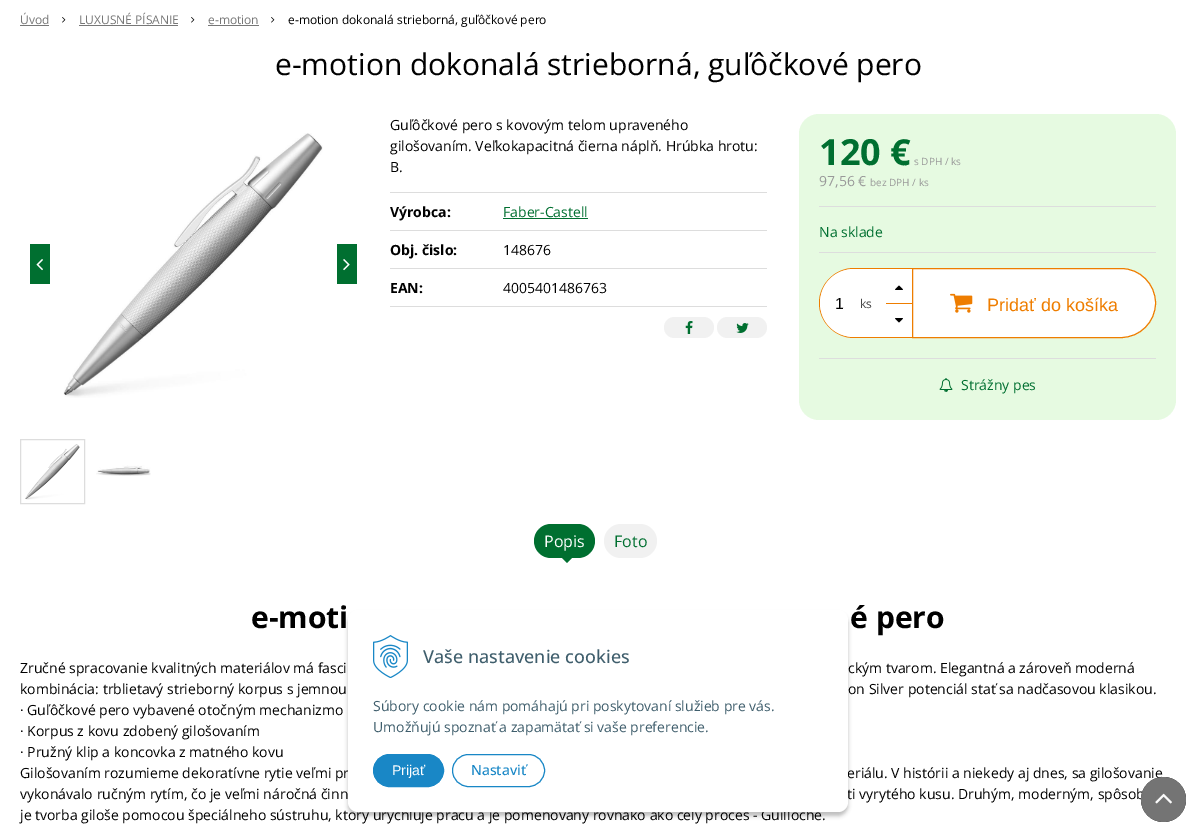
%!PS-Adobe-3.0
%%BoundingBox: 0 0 1196 832
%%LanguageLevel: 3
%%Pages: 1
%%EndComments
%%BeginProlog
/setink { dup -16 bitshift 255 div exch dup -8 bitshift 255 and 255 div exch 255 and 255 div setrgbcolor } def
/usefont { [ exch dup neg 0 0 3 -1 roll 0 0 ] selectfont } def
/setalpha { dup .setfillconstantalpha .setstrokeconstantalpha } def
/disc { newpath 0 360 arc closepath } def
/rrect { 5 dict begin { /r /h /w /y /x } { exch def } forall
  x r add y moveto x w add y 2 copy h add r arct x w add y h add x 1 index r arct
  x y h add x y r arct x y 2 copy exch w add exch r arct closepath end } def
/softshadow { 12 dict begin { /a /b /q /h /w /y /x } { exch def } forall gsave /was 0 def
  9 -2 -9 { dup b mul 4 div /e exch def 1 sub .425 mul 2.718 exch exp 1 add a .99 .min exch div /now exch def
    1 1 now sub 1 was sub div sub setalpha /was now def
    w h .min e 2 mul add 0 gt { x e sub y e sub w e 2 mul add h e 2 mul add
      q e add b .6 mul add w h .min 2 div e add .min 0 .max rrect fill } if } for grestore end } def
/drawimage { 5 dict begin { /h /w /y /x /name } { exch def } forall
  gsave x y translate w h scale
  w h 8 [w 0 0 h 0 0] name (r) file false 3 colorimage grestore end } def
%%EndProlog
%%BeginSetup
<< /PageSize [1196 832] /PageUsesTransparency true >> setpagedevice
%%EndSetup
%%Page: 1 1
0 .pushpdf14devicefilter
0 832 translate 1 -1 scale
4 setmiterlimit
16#FFFFFF setink
0 0 1196 832 rectfill
/OpenSans-Regular 12 usefont
16#777777 setink
20 24 moveto (Úvod) show
20 25 29 1 rectfill
(img1.raw) 62 17 4 6 drawimage
79 24 moveto (LUXUSNÉ PÍSANIE) show
79 25 99 1 rectfill
(img1.raw) 191 17 4 6 drawimage
208 24 moveto (e-motion) show
208 25 51 1 rectfill
(img1.raw) 271 17 4 6 drawimage
16#000000 setink
288 24 moveto (e-motion dokonalá strieborná, guľôčkové pero) show
/OpenSans-Regular 30 usefont
275 75 moveto (e-motion dokonalá strieborná, guľôčkové pero) show
(img2.raw) 63 133 260 265 drawimage
16#006F30 setink
30 244 20 40 rectfill
(img3.raw) 36 259 7 12 drawimage
337 244 20 40 rectfill
(img4.raw) 343 259 7 12 drawimage
16#DDDDDD setink
20.5 439.5 64 64 rectstroke
(img5.raw) 25 444 55 56 drawimage
(img6.raw) 96 465 55 11 drawimage
/OpenSans-Regular 14 usefont
16#000000 setink
[
    [(Guľôčkové pero s kovovým telom upraveného) 390 130]
    [(gilošovaním. Veľkokapacitná čierna náplň. Hrúbka hrotu:) 390 151]
    [(B.) 390 172]
] { aload pop moveto show } forall
16#DDDDDD setink
390 306 377 1 rectfill
390 192 377 1 rectfill
/OpenSans-Bold 14 usefont
16#000000 setink
390 217 moveto (Výrobca:) show
/OpenSans-Regular 14 usefont
16#006F30 setink
503 217 moveto (Faber-Castell) show
503 218 85 1 rectfill
16#DDDDDD setink
390 230 377 1 rectfill
/OpenSans-Bold 14 usefont
16#000000 setink
390 255 moveto (Obj. čislo:) show
/OpenSans-Regular 14 usefont
503 255 moveto (148676) show
16#DDDDDD setink
390 268 377 1 rectfill
/OpenSans-Bold 14 usefont
16#000000 setink
390 293 moveto (EAN:) show
/OpenSans-Regular 14 usefont
503 293 moveto (4005401486763) show
16#F1F1F1 setink
664 317 50 21 10.5 rrect fill
(img7.raw) 685 321 8 13 drawimage
717 317 50 21 10.5 rrect fill
(img8.raw) 736 323 13 10 drawimage
16#E6FAE1 setink
799 114 377 306 20 rrect fill
16#DDDDDD setink
819 206 337 1 rectfill
/OpenSans-Bold 36 usefont
16#006F30 setink
819 165 moveto (120 €) show
/OpenSans-Regular 10 usefont
16#999999 setink
914 165 moveto (s DPH / ks) show
/OpenSans-Regular 14 usefont
819 186 moveto (97,56 €) show
/OpenSans-Regular 10 usefont
870 186 moveto (bez DPH / ks) show
16#DDDDDD setink
819 252 337 1 rectfill
/OpenSans-Regular 14 usefont
16#006F30 setink
819 237 moveto (Na sklade) show
16#FFFFFF setink
854 269 moveto 912 269 lineto 912 337 lineto 854 337 lineto 835 337 820 322 820 303 curveto 820 284 835 269 854 269 curveto closepath fill
16#EE7D00 setink
854 268 moveto 912 268 lineto 912 338 lineto 854 338 lineto 835 338 819 322 819 303 curveto 819 284 835 268 854 268 curveto closepath 854 269 moveto 912 269 lineto 912 337 lineto 854 337 lineto 835 337 820 322 820 303 curveto 820 284 835 269 854 269 curveto closepath eofill
16#FFFFFF setink
854 269 moveto 860 269 lineto 860 337 lineto 854 337 lineto 835 337 820 322 820 303 curveto 820 284 835 269 854 269 curveto closepath fill
/LiberationSans-Regular 16 usefont
16#000000 setink
835 309 moveto (1) show
/OpenSans-Regular 12 usefont
16#444444 setink
860 308 moveto (ks) show
16#EE7D00 setink
886 303 26 1 rectfill
(img9.raw) 895 285 8 5 drawimage
(img10.raw) 895 318 8 5 drawimage
16#FFFFFF setink
912.5 268.5 moveto 1121 268.5 lineto 1140 268.5 1155.5 284 1155.5 303 curveto 1155.5 322 1140 337.5 1121 337.5 curveto 912.5 337.5 lineto closepath gsave fill grestore
16#EE7D00 setink
stroke
(img11.raw) 950 293 23 20 drawimage
/LiberationSans-Regular 18 usefont
987 311 moveto (Pridať do košíka) show
16#DDDDDD setink
819 358 337 1 rectfill
(img12.raw) 939 378 14 14 drawimage
/OpenSans-Regular 14 usefont
16#006F30 setink
961 390 moveto (Strážny pes) show
534 524 61 34 17 rrect fill
/OpenSans-Regular 16 usefont
16#FFFFFF setink
544 547 moveto (Popis) show
16#006F30 setink
562 558 moveto 572 558 lineto 567 563 lineto closepath fill
16#F1F1F1 setink
604 524 53 34 17 rrect fill
16#006F30 setink
614 547 moveto (Foto) show
/OpenSans-Bold 30 usefont
16#000000 setink
251 628 moveto (e-moti) show
850 628 moveto (é pero) show
/OpenSans-Regular 14 usefont
[
    [(Zručné spracovanie kvalitných materiálov má fasci) 20 673]
    [(ckým tvarom. Elegantná a zároveň moderná) 848 673]
    [(kombinácia: trblietavý strieborný korpus s jemnou) 20 694]
    [(on Silver potenciál stať sa nadčasovou klasikou.) 848 694]
    [(· Guľôčkové pero vybavené otočným mechanizmo) 20 715]
    [(· Korpus z kovu zdobený gilošovaním) 20 736]
    [(· Pružný klip a koncovka z matného kovu) 20 757]
    [(Gilošovaním rozumieme dekoratívne rytie veľmi pr) 20 778]
    [(eriálu. V histórii a niekedy aj dnes, sa gilošovanie) 847 778]
    [(vykonávalo ručným rytím, čo je veľmi náročná činn) 20 799]
    [(ti vyrytého kusu. Druhým, moderným, spôsob) 847 799]
    [(je tvorba giloše pomocou špeciálneho sústruhu, ktorý urýchľuje prácu a je pomenovaný rovnako ako celý proces - Guilloche.) 20 820]
] { aload pop moveto show } forall
0.97 setalpha
1163.5 799.5 22.5 disc fill
16#777777 setink
1163.5 799.5 22.5 disc fill
1 setalpha
(img13.raw) 1155 793 17 11 drawimage
16#000000 setink
348 614 500 202 10 2 0.25 softshadow
16#FFFFFF setink
348 610 500 202 10 rrect fill
(img14.raw) 373 635 35 43 drawimage
/OpenSans-Medium 18 usefont
16#3F5E6C setink
423 663 moveto (Vaše nastavenie cookies) show
/OpenSans-Regular 14 usefont
373 711 moveto (Súbory cookie nám pomáhajú pri poskytovaní služieb pre vás.) show
373 732 moveto (Umožňujú spoznať a zapamätať si vaše preferencie.) show
16#1987C6 setink
373.5 754.5 70 32 16 rrect gsave fill grestore
stroke
/LiberationSans-Regular 14 usefont
16#FFFFFF setink
392 775 moveto (Prijať) show
16#1987C6 setink
452.5 754.5 92 32 16 rrect stroke
/OpenSans-Medium 14 usefont
471 775 moveto (Nastaviť) show
.poppdf14devicefilter showpage
%%EOF
